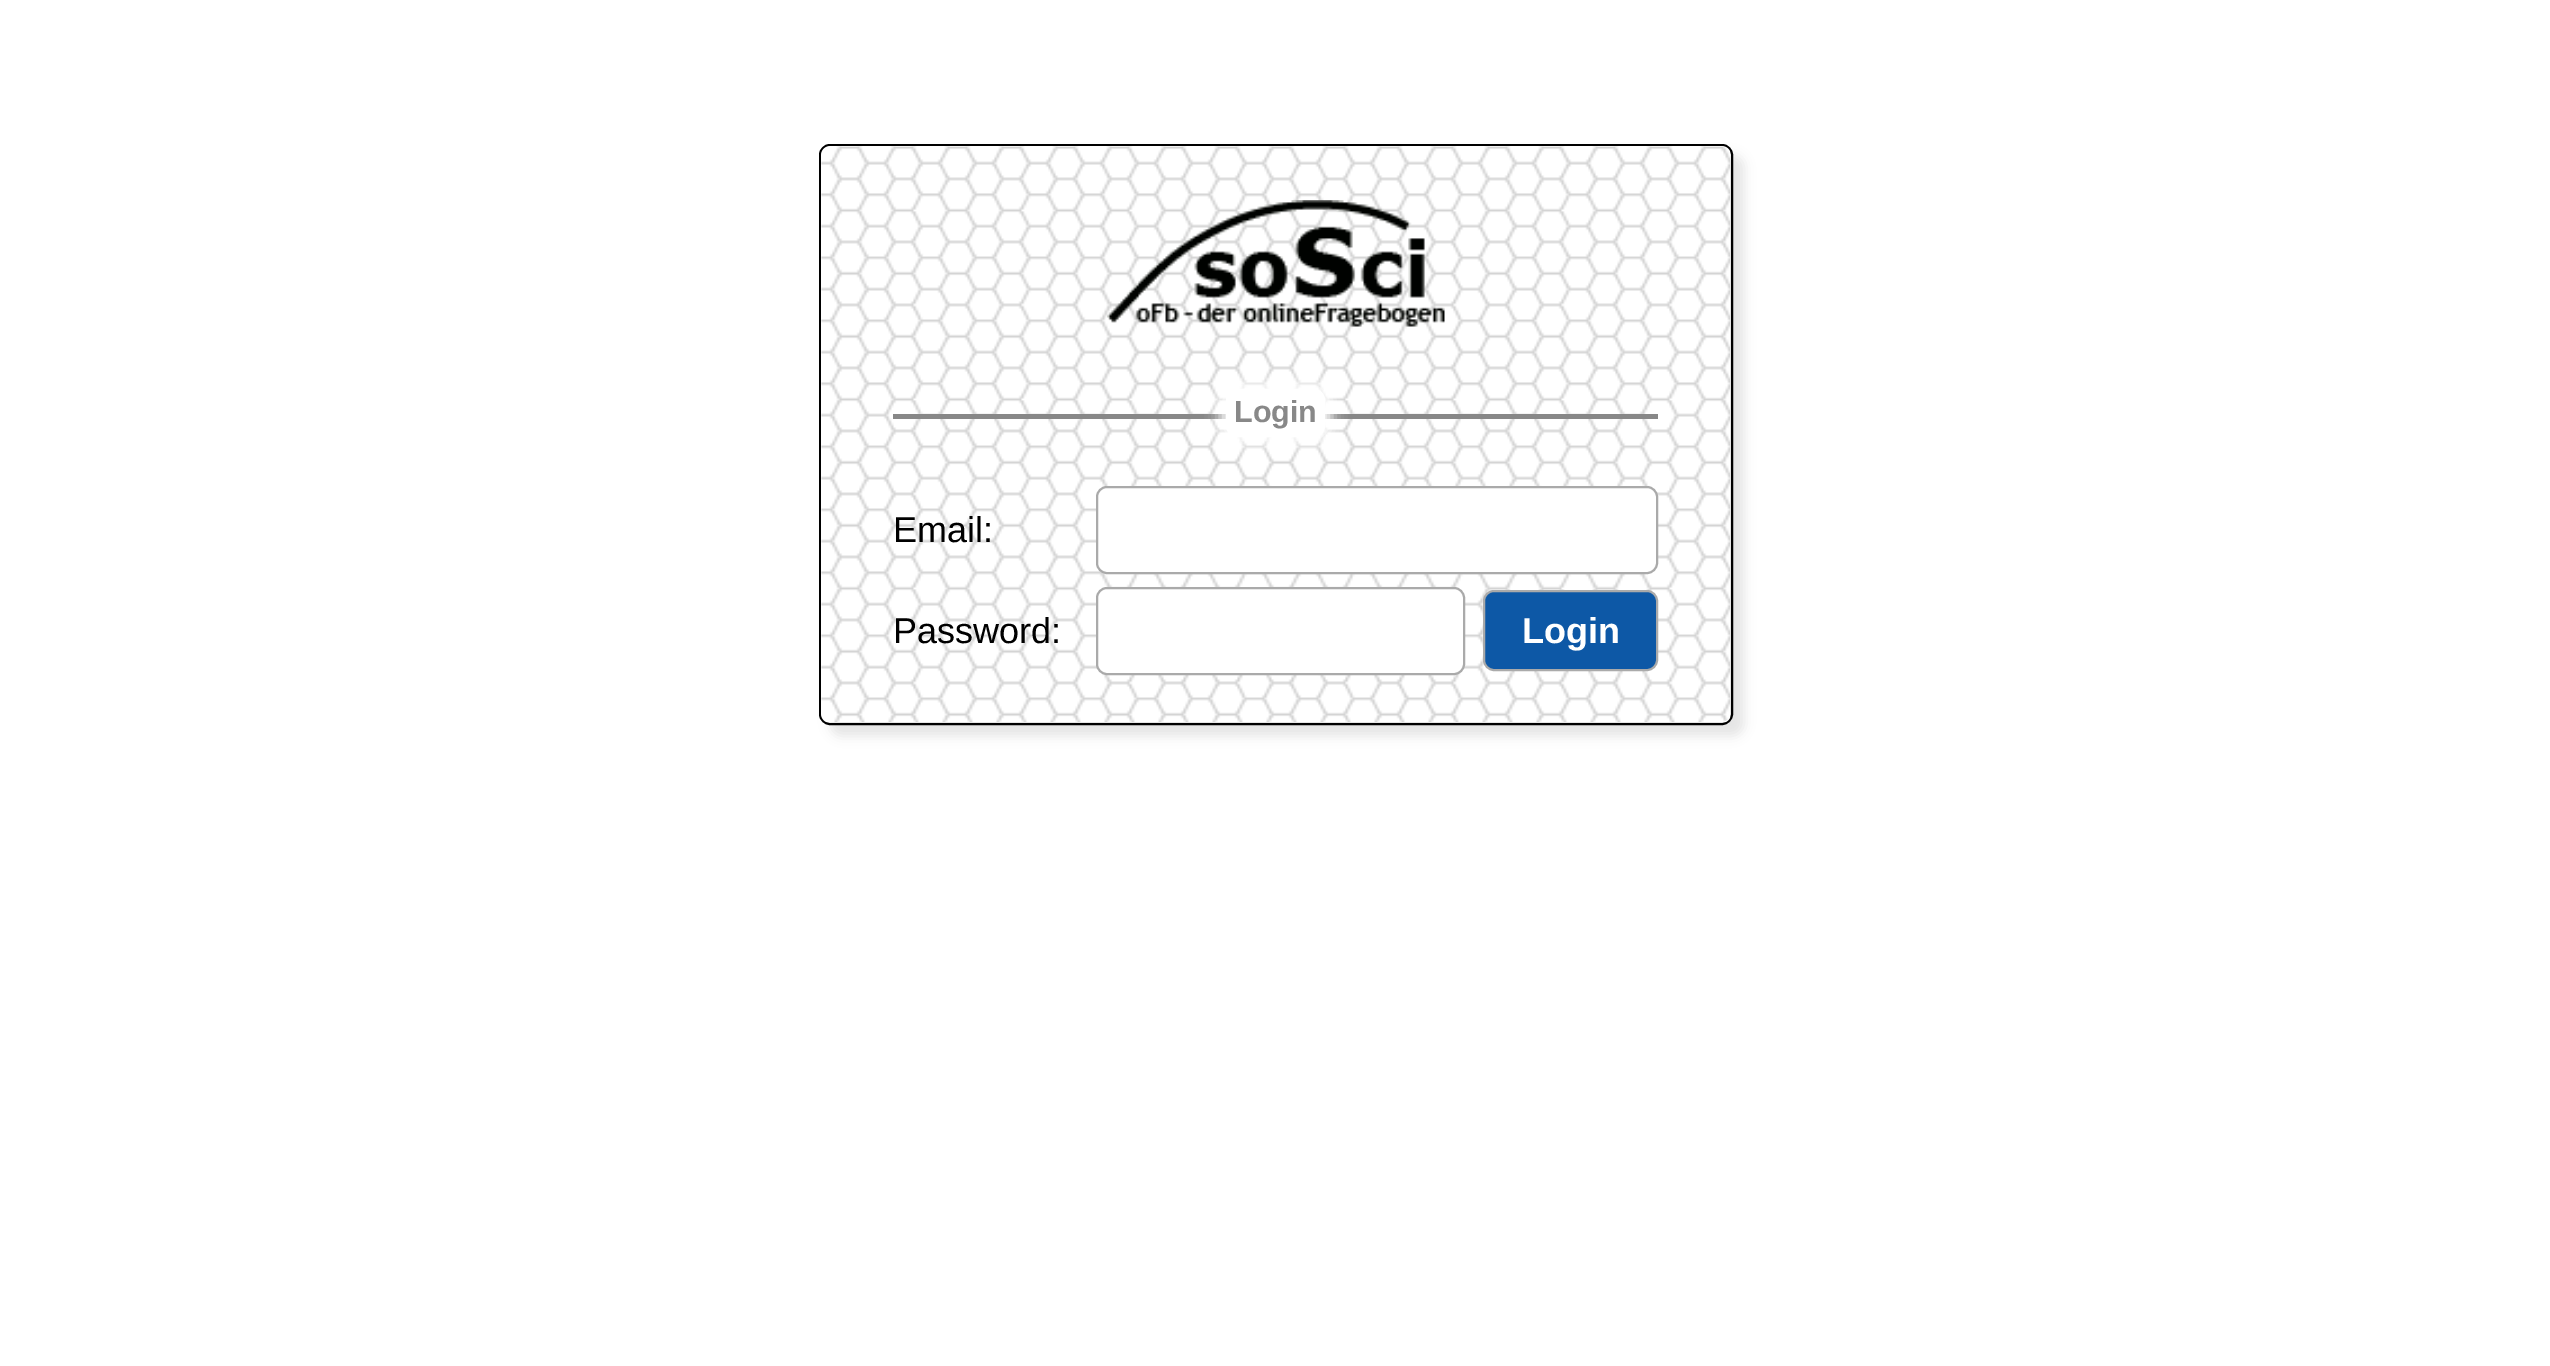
%!PS-Adobe-3.0
%%BoundingBox: 0 0 2550 1366
%%LanguageLevel: 3
%%Pages: 1
%%EndComments
%%BeginProlog
/setink { dup -16 bitshift 255 div exch dup -8 bitshift 255 and 255 div exch 255 and 255 div setrgbcolor } def
/usefont { [ exch dup neg 0 0 3 -1 roll 0 0 ] selectfont } def
/setalpha { dup .setfillconstantalpha .setstrokeconstantalpha } def
/rrect { 5 dict begin { /r /h /w /y /x } { exch def } forall
  x r add y moveto x w add y 2 copy h add r arct x w add y h add x 1 index r arct
  x y h add x y r arct x y 2 copy exch w add exch r arct closepath end } def
/softshadow { 12 dict begin { /a /b /q /h /w /y /x } { exch def } forall gsave /was 0 def
  9 -2 -9 { dup b mul 4 div /e exch def 1 sub .425 mul 2.718 exch exp 1 add a .99 .min exch div /now exch def
    1 1 now sub 1 was sub div sub setalpha /was now def
    w h .min e 2 mul add 0 gt { x e sub y e sub w e 2 mul add h e 2 mul add
      q e add b .6 mul add w h .min 2 div e add .min 0 .max rrect fill } if } for grestore end } def
/drawimage { 5 dict begin { /h /w /y /x /name } { exch def } forall
  gsave x y translate w h scale
  w h 8 [w 0 0 h 0 0] name (r) file false 3 colorimage grestore end } def
%%EndProlog
%%BeginSetup
<< /PageSize [2550 1366] /PageUsesTransparency true >> setpagedevice
%%EndSetup
%%Page: 1 1
0 .pushpdf14devicefilter
0 1366 translate 1 -1 scale
4 setmiterlimit
16#FFFFFF setink
0 0 2550 1366 rectfill
16#000000 setink
830 155 914 581 11 5.5 0.1 softshadow
2 setlinewidth
820 145 912 579 10 rrect stroke
(img1.raw) 821 146 909 576 drawimage
(img2.raw) 1107 200 338 127 drawimage
16#888888 setink
893 414 765 5 rectfill
16#FFFFFF setink
1220 383 112 60 18 7 1 softshadow
1226 389 99 48 11 rrect fill
/LiberationSans-Bold 30.5 usefont
16#888888 setink
1234 422 moveto (Login) show
/LiberationSans-Regular 36 usefont
16#000000 setink
893 542 moveto (Email:) show
16#FFFFFF setink
1097 487 560 86 10 rrect gsave fill grestore
16#AAAAAA setink
stroke
16#000000 setink
893 643 moveto (Password:) show
16#FFFFFF setink
1097 588 367 86 10 rrect gsave fill grestore
16#AAAAAA setink
stroke
16#0D58A6 setink
1484 591 173 79 10 rrect gsave fill grestore
16#AAAAAA setink
stroke
/LiberationSans-Bold 36 usefont
16#FFFFFF setink
1522 643 moveto (Login) show
.poppdf14devicefilter showpage
%%EOF
